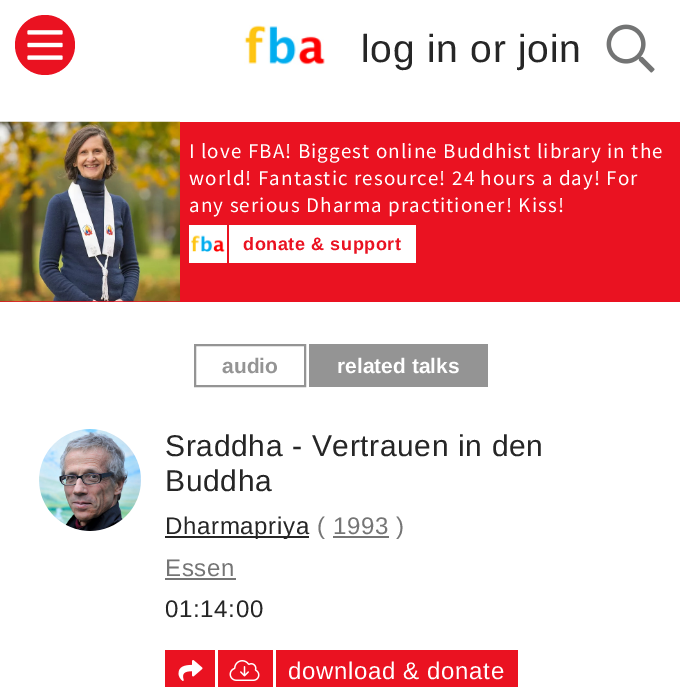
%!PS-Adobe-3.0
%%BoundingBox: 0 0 680 687
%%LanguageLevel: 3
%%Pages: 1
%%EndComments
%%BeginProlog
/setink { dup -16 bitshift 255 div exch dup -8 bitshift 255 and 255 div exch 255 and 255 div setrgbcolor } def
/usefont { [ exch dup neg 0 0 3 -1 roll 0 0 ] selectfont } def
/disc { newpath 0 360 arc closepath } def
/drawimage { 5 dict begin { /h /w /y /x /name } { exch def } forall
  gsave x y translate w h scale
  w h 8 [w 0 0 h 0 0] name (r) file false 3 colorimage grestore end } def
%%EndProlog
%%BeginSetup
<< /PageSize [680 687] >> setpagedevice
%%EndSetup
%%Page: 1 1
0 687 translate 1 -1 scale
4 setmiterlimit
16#FFFFFF setink
0 0 680 687 rectfill
16#EA1221 setink
45 45 30 disc fill
(img1.raw) 27 30 36 30 drawimage
(img2.raw) 244 25 81 40 drawimage
/LiberationSans-Regular 39 usefont
16#262626 setink
361 62 moveto 0.75 0 (log in or join) ashow
(img3.raw) 606 24 49 49 drawimage
16#EA1221 setink
0 122 680 180 rectfill
(img4.raw) 0 121 180 181 drawimage
/SourceSansPro-Regular 21 usefont
16#FFFFFF setink
189 158 moveto 1.12 0 (I love FBA! Biggest online Buddhist library in the) ashow
189 185 moveto 1.12 0 (world! Fantastic resource! 24 hours a day! For) ashow
189 212 moveto 1.12 0 (any serious Dharma practitioner! Kiss!) ashow
189 225 227 38 rectfill
16#EA1221 setink
227 225 2 38 rectfill
(img5.raw) 191 235 34 17 drawimage
/LiberationSans-Bold 18 usefont
243 250 moveto 0.6 0 (donate & support) ashow
16#949494 setink
2 setlinewidth
195 345 110 41 rectstroke
/LiberationSans-Bold 21 usefont
222 373 moveto (audio) show
309 344 179 43 rectfill
16#FFFFFF setink
337 373 moveto (related talks) show
(img6.raw) 39 429 102 102 drawimage
/LiberationSans-Regular 30 usefont
16#262626 setink
165 456 moveto 0.65 0 (Sraddha - Vertrauen in den) ashow
165 491 moveto 0.65 0 (Buddha) ashow
165 536 144 2 rectfill
/LiberationSans-Regular 24 usefont
165 534 moveto 0.65 0 (Dharmapriya) ashow
16#757575 setink
317 534 moveto 0.65 0 (\( 1993 \)) ashow
333 536 56 2 rectfill
165 576 moveto 0.65 0 (Essen) ashow
165 578 71 2 rectfill
16#262626 setink
165 617 moveto 0.65 0 (01:14:00) ashow
16#EA1221 setink
165 650 50 37 rectfill
(img7.raw) 178 660 25 21 drawimage
218 650 55 37 rectfill
(img8.raw) 229 660 31 21 drawimage
276 650 242 37 rectfill
16#FFFFFF setink
288 679 moveto 0.65 0 (download & donate) ashow
showpage
%%EOF
